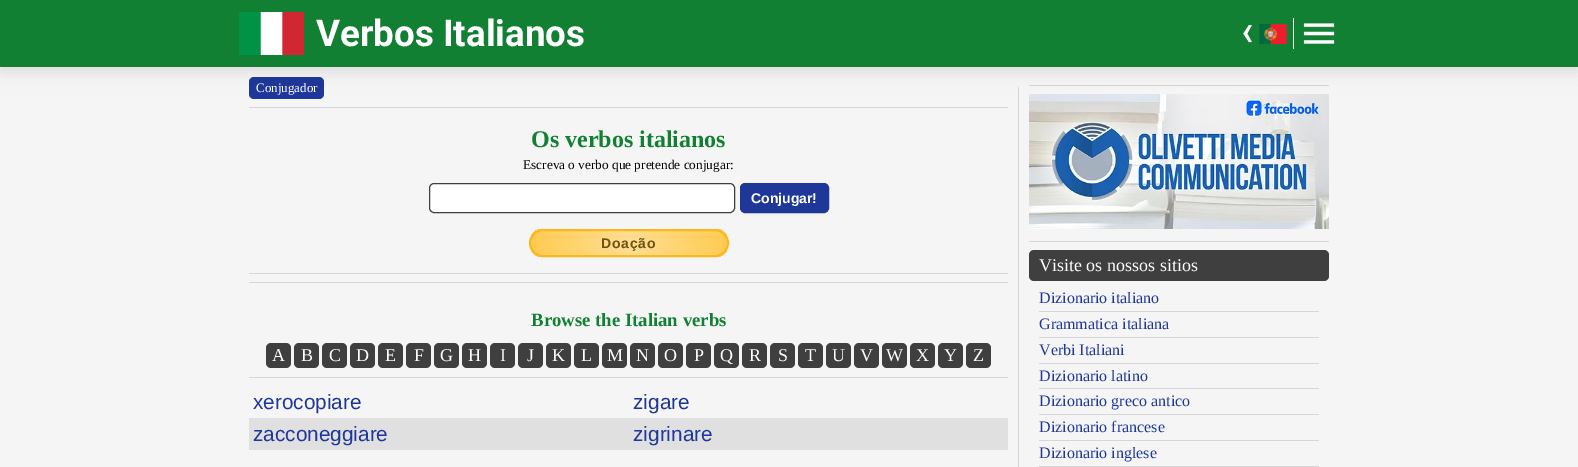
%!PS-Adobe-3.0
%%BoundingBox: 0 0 1578 467
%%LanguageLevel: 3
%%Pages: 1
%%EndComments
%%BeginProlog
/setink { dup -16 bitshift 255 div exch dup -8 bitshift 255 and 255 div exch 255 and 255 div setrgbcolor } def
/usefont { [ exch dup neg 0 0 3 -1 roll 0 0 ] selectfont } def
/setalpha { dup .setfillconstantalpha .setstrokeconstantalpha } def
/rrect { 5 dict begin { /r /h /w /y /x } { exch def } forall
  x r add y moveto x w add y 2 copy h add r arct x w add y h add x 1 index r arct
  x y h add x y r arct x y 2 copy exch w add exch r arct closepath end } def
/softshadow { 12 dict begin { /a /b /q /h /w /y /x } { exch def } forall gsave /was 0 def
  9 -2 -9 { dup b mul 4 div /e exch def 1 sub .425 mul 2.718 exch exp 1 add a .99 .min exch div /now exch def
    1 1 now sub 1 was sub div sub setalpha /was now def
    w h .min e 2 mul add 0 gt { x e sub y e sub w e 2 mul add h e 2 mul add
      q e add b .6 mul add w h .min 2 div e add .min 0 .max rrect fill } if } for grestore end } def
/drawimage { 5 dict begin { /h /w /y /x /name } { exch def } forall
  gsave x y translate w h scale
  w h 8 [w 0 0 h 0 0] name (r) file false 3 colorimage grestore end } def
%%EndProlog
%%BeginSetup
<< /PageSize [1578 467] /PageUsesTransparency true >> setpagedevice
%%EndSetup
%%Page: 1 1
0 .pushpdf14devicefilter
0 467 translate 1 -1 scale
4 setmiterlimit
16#F5F5F5 setink
0 0 1578 467 rectfill
16#1E3799 setink
249 77 75 22 5 rrect fill
16#D6D6D6 setink
1018 87 1 380 rectfill
1029 85 300 1 rectfill
(img5.raw) 1029 94 300 135 drawimage
16#000000 setink
0 5 1578 67 0 8 0.1 softshadow
16#128033 setink
0 0 1578 67 rectfill
(img1.raw) 239 12 65 43 drawimage
/Roboto-Bold 36.75 usefont
16#FFFFFF setink
316 46 moveto (Verbos Italianos) show
(img2.raw) 1243 24 9 19 drawimage
(img3.raw) 1259 23 28 22 drawimage
1293 18 1 31 rectfill
(img4.raw) 1303 23 32 21 drawimage
/LiberationSerif-Regular 13 usefont
256 92 moveto (Conjugador) show
16#D6D6D6 setink
249 107 759 1 rectfill
/LiberationSerif-Bold 24 usefont
16#128033 setink
531 147 moveto (Os verbos italianos) show
/LiberationSerif-Regular 13.3 usefont
16#000000 setink
523 169 moveto (Escreva o verbo que pretende conjugar:) show
16#FFFFFF setink
429.5 183.5 305 29 4.5 rrect gsave fill grestore
16#3F3F3F setink
stroke
16#1E3799 setink
740.5 183.5 88 29 4.5 rrect gsave fill grestore
stroke
/LiberationSans-Bold 14 usefont
16#FFFFFF setink
751 203 moveto (Conjugar!) show
gsave
529 229 200 28 14 rrect clip newpath
gsave 531 229 moveto 727 229 lineto 727 257 lineto 531 257 lineto closepath clip newpath
<< /ShadingType 2 /ColorSpace /DeviceRGB /Coords [531 243 727 243] /Extend [true true] /Function << /FunctionType 3 /Domain [0 1] /Functions [<< /FunctionType 2 /Domain [0 1] /C0 [1 0.796 0.322] /C1 [1 0.871 0.569] /N 1 >> << /FunctionType 2 /Domain [0 1] /C0 [1 0.871 0.569] /C1 [1 0.796 0.322] /N 1 >>] /Bounds [0.5] /Encode [0 1 0 1] >> >> shfill grestore
grestore
16#FAB81E setink
2 setlinewidth
530 230 198 26 13 rrect stroke
16#6D5214 setink
601 248 moveto 0.75 0 (Doação) ashow
16#D6D6D6 setink
249 273 759 1 rectfill
249 282 759 1 rectfill
/LiberationSerif-Bold 18.75 usefont
16#128033 setink
531 326 moveto (Browse the Italian verbs) show
16#3F3F3F setink
266 343 25 25 5 rrect fill
/LiberationSerif-Regular 18 usefont
16#FFFFFF setink
272 361 moveto (A) show
16#3F3F3F setink
294 343 25 25 5 rrect fill
16#FFFFFF setink
301 361 moveto (B) show
16#3F3F3F setink
322 343 25 25 5 rrect fill
16#FFFFFF setink
329 361 moveto (C) show
16#3F3F3F setink
350 343 25 25 5 rrect fill
16#FFFFFF setink
356 361 moveto (D) show
16#3F3F3F setink
378 343 25 25 5 rrect fill
16#FFFFFF setink
385 361 moveto (E) show
16#3F3F3F setink
406 343 25 25 5 rrect fill
16#FFFFFF setink
414 361 moveto (F) show
16#3F3F3F setink
434 343 25 25 5 rrect fill
16#FFFFFF setink
440 361 moveto (G) show
16#3F3F3F setink
462 343 25 25 5 rrect fill
16#FFFFFF setink
468 361 moveto (H) show
16#3F3F3F setink
490 343 25 25 5 rrect fill
16#FFFFFF setink
500 361 moveto (I) show
16#3F3F3F setink
518 343 25 25 5 rrect fill
16#FFFFFF setink
527 361 moveto (J) show
16#3F3F3F setink
546 343 25 25 5 rrect fill
16#FFFFFF setink
552 361 moveto (K) show
16#3F3F3F setink
574 343 25 25 5 rrect fill
16#FFFFFF setink
581 361 moveto (L) show
16#3F3F3F setink
602 343 25 25 5 rrect fill
16#FFFFFF setink
607 361 moveto (M) show
16#3F3F3F setink
630 343 25 25 5 rrect fill
16#FFFFFF setink
636 361 moveto (N) show
16#3F3F3F setink
658 343 25 25 5 rrect fill
16#FFFFFF setink
664 361 moveto (O) show
16#3F3F3F setink
686 343 25 25 5 rrect fill
16#FFFFFF setink
694 361 moveto (P) show
16#3F3F3F setink
714 343 25 25 5 rrect fill
16#FFFFFF setink
720 361 moveto (Q) show
16#3F3F3F setink
742 343 25 25 5 rrect fill
16#FFFFFF setink
749 361 moveto (R) show
16#3F3F3F setink
770 343 25 25 5 rrect fill
16#FFFFFF setink
778 361 moveto (S) show
16#3F3F3F setink
798 343 25 25 5 rrect fill
16#FFFFFF setink
805 361 moveto (T) show
16#3F3F3F setink
826 343 25 25 5 rrect fill
16#FFFFFF setink
832 361 moveto (U) show
16#3F3F3F setink
854 343 25 25 5 rrect fill
16#FFFFFF setink
860 361 moveto (V) show
16#3F3F3F setink
882 343 25 25 5 rrect fill
16#FFFFFF setink
886 361 moveto (W) show
16#3F3F3F setink
910 343 25 25 5 rrect fill
16#FFFFFF setink
916 361 moveto (X) show
16#3F3F3F setink
938 343 25 25 5 rrect fill
16#FFFFFF setink
944 361 moveto (Y) show
16#3F3F3F setink
966 343 25 25 5 rrect fill
16#FFFFFF setink
973 361 moveto (Z) show
16#D6D6D6 setink
249 377 759 1 rectfill
/LiberationSans-Regular 20.75 usefont
16#1E3799 setink
253 409 moveto (xerocopiare) show
633 409 moveto (zigare) show
16#E0E0E0 setink
249 418 759 32 rectfill
16#1E3799 setink
253 441 moveto (zacconeggiare) show
633 441 moveto (zigrinare) show
16#D6D6D6 setink
1029 241 300 1 rectfill
16#3F3F3F setink
1029 250 300 31 5 rrect fill
/LiberationSerif-Regular 18 usefont
16#FFFFFF setink
1039 271 moveto (Visite os nossos sitios) show
16#D6D6D6 setink
1039 311 280 1 rectfill
/LiberationSerif-Regular 16 usefont
16#1E3799 setink
1039 303 moveto (Dizionario italiano) show
16#D6D6D6 setink
1039 337 280 1 rectfill
16#1E3799 setink
1039 329 moveto (Grammatica italiana) show
16#D6D6D6 setink
1039 363 280 1 rectfill
16#1E3799 setink
1039 355 moveto (Verbi Italiani) show
16#D6D6D6 setink
1039 388 280 1 rectfill
16#1E3799 setink
1039 381 moveto (Dizionario latino) show
16#D6D6D6 setink
1039 414 280 1 rectfill
16#1E3799 setink
1039 406 moveto (Dizionario greco antico) show
16#D6D6D6 setink
1039 440 280 1 rectfill
16#1E3799 setink
1039 432 moveto (Dizionario francese) show
16#D6D6D6 setink
1039 466 280 1 rectfill
16#1E3799 setink
1039 458 moveto (Dizionario inglese) show
.poppdf14devicefilter showpage
%%EOF
